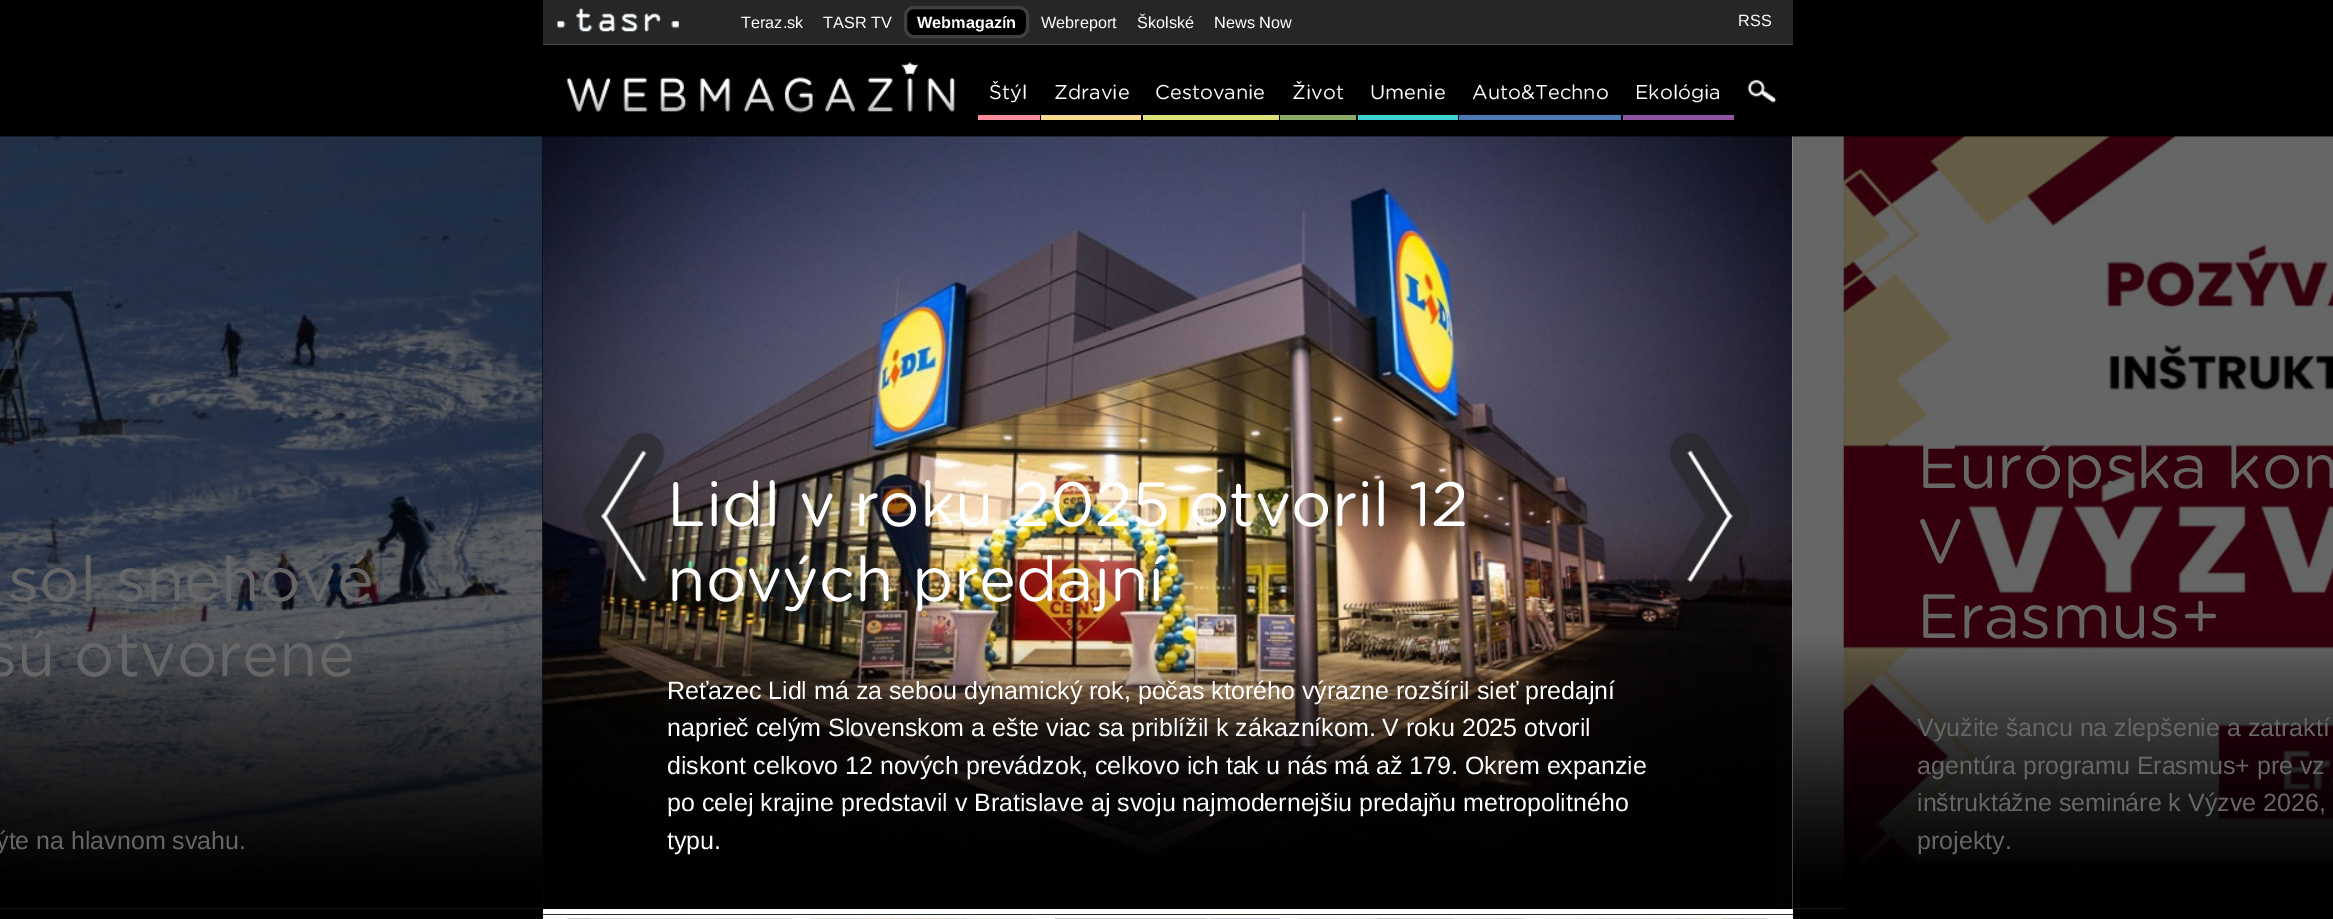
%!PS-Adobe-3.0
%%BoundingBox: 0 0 2333 919
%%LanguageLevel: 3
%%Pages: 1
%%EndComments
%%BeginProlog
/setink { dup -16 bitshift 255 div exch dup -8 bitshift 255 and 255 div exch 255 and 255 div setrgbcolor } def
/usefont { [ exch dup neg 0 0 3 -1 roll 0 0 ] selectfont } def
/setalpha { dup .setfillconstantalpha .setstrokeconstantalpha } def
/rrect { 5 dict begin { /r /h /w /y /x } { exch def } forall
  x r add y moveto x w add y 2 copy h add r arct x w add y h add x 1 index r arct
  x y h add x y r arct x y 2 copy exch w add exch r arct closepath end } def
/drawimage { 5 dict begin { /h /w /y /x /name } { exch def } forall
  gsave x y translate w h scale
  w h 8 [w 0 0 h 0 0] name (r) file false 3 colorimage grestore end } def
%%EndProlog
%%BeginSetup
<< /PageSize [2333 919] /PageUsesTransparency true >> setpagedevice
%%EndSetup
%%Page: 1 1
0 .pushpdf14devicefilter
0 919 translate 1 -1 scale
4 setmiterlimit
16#000000 setink
0 0 2333 919 rectfill
16#262626 setink
543 0 1250 44 rectfill
16#4E4E4E setink
543 44 1250 1 rectfill
(img1.raw) 557 8 122 24 drawimage
/LiberationSans-Regular 16.25 usefont
16#FFFFFF setink
741 28 moveto (Teraz.sk) show
823 28 moveto (TASR TV) show
16#000000 setink
905.5 7.5 122 29 8.5 rrect gsave fill grestore
16#404040 setink
3 setlinewidth
stroke
/LiberationSans-Bold 16.25 usefont
16#FFFFFF setink
917 28 moveto (Webmagazín) show
/LiberationSans-Regular 16.25 usefont
[
    [(Webreport) 1041 28]
    [(Školské) 1137 28]
    [(News Now) 1214 28]
    [(RSS) 1738 26]
] { aload pop moveto show } forall
(img2.raw) 566 62 390 51 drawimage
16#F98D9C setink
978 115 62 5 rectfill
/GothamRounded-Regular 20 usefont
16#FFFFFF setink
989 99 moveto (Štýl) show
16#F9D98D setink
1041 115 100 5 rectfill
16#FFFFFF setink
1054 99 moveto (Zdravie) show
16#DCE079 setink
1143 115 136 5 rectfill
16#FFFFFF setink
1155 99 moveto (Cestovanie) show
16#8EAA67 setink
1280 115 76 5 rectfill
16#FFFFFF setink
1292 99 moveto (Život) show
16#3CD4D2 setink
1358 115 100 5 rectfill
16#FFFFFF setink
1370 99 moveto (Umenie) show
16#4A7AB1 setink
1459 115 162 5 rectfill
16#FFFFFF setink
1472 99 moveto (Auto&Techno) show
16#8D53A0 setink
1623 115 111 5 rectfill
16#FFFFFF setink
1635 99 moveto (Ekológia) show
(img3.raw) 1747 79 30 24 drawimage
(img6.raw) 0 136 543 773 drawimage
(img7.raw) 0 634 543 275 drawimage
/GothamRounded-Regular 62.5 usefont
8 601 moveto (sol snehové) show
-14 676 moveto (sú otvorené) show
/LiberationSans-Regular 25 usefont
-4 849 moveto (ýte na hlavnom svahu.) show
(img8.raw) 542 136 1251 773 drawimage
(img9.raw) 542 634 1234 275 drawimage
0.6 setalpha
16#000000 setink
0 136 543 773 rectfill
1 setalpha
(img4.raw) 582 432 83 168 drawimage
(img5.raw) 1669 432 82 168 drawimage
/GothamRounded-Regular 62.5 usefont
16#FFFFFF setink
667 526 moveto (Lidl v roku 2025 otvoril 12) show
667 601 moveto (nových predajní) show
/LiberationSans-Regular 25 usefont
[
    [(Reťazec Lidl má za sebou dynamický rok, počas ktorého výrazne rozšíril sieť predajní) 667 699]
    [(naprieč celým Slovenskom a ešte viac sa priblížil k zákazníkom. V roku 2025 otvoril) 667 736]
    [(diskont celkovo 12 nových prevádzok, celkovo ich tak u nás má až 179. Okrem expanzie) 667 774]
    [(po celej krajine predstavil v Bratislave aj svoju najmodernejšiu predajňu metropolitného) 667 811]
    [(typu.) 667 849]
] { aload pop moveto show } forall
(img10.raw) 1792 136 541 773 drawimage
(img11.raw) 1792 634 541 275 drawimage
/GothamRounded-Regular 62.5 usefont
16#666666 setink
[
    [(Európska kom) 1917 488]
    [(V) 1917 563]
    [(Erasmus+) 1917 638]
] { aload pop moveto show } forall
/LiberationSans-Regular 25 usefont
[
    [(Využite šancu na zlepšenie a zatraktí) 1917 736]
    [(agentúra programu Erasmus+ pre vz) 1917 774]
    [(inštruktážne semináre k Výzve 2026,) 1917 811]
    [(projekty.) 1917 849]
] { aload pop moveto show } forall
16#FFFFFF setink
543 909 1250 10 rectfill
16#2E2E2E setink
543 914 1250 1 rectfill
(img12.raw) 567 918 226 1 drawimage
(img13.raw) 811 918 226 1 drawimage
(img14.raw) 1055 918 225 1 drawimage
(img15.raw) 1298 918 226 1 drawimage
(img16.raw) 1542 918 226 1 drawimage
.poppdf14devicefilter showpage
%%EOF
